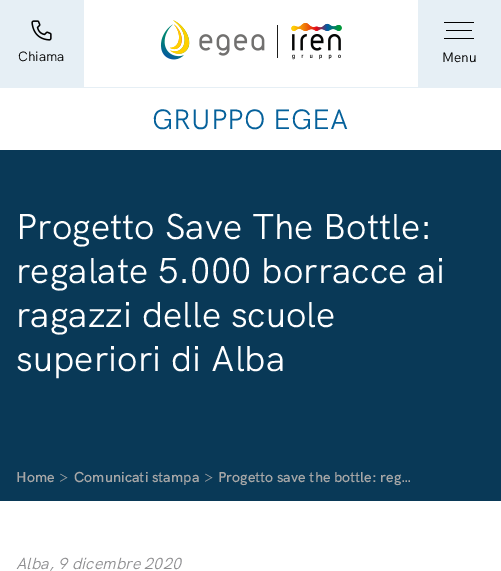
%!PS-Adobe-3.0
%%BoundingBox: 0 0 501 571
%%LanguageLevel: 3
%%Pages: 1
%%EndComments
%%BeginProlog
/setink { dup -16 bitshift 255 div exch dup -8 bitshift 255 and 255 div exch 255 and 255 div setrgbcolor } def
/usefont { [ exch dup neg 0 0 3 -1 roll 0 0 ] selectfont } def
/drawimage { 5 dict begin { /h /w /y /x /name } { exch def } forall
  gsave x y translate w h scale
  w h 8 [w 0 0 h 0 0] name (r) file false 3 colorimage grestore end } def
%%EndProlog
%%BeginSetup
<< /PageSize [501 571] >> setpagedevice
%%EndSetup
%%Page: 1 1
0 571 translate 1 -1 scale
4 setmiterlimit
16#FFFFFF setink
0 0 501 571 rectfill
16#E6EFF5 setink
0 0 501 88 rectfill
(img1.raw) 31 20 21 21 drawimage
/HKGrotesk-Regular 13.5 usefont
16#000000 setink
18 61 moveto (Chiama) show
16#FFFFFF setink
84 0 334 87 rectfill
(img2.raw) 160 20 182 40 drawimage
[
    [444 22 30 1 16#000000]
    [446 30 26 1 16#000000]
    [444 38 30 1 16#000000]
] { aload pop setink rectfill } forall
442 62 moveto (Menu) show
/HKGrotesk-Regular 28 usefont
16#05619B setink
152 129 moveto (GRUPPO EGEA) show
16#093957 setink
0 150 501 351 rectfill
/HKGrotesk-Regular 36 usefont
16#FFFFFF setink
[
    [(Progetto Save The Bottle:) 16 239]
    [(regalate 5.000 borracce ai) 16 283]
    [(ragazzi delle scuole) 16 327]
    [(superiori di Alba) 16 371]
] { aload pop moveto show } forall
/HKGrotesk-SemiBold 14.4 usefont
16#A7A7A7 setink
16 482 moveto (Home) show
/HKGrotesk-Regular 14.4 usefont
59 482 moveto (>) show
/HKGrotesk-SemiBold 14.4 usefont
74 482 moveto (Comunicati stampa) show
/HKGrotesk-Regular 14.4 usefont
204 482 moveto (>) show
/HKGrotesk-SemiBold 14.4 usefont
218 482 moveto (Progetto save the bottle: reg…) show
/HKGrotesk-Italic 16 usefont
16#8D8D8F setink
16 569 moveto (Alba, 9 dicembre 2020) show
showpage
%%EOF
